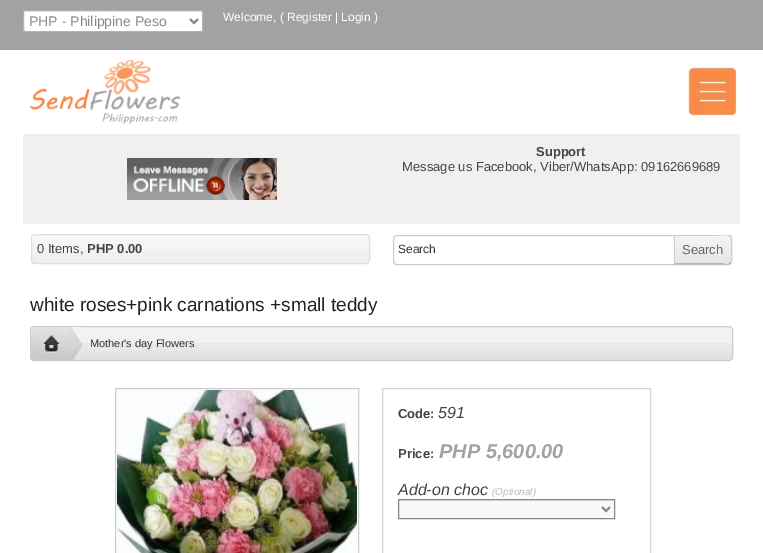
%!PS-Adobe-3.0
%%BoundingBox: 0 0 763 553
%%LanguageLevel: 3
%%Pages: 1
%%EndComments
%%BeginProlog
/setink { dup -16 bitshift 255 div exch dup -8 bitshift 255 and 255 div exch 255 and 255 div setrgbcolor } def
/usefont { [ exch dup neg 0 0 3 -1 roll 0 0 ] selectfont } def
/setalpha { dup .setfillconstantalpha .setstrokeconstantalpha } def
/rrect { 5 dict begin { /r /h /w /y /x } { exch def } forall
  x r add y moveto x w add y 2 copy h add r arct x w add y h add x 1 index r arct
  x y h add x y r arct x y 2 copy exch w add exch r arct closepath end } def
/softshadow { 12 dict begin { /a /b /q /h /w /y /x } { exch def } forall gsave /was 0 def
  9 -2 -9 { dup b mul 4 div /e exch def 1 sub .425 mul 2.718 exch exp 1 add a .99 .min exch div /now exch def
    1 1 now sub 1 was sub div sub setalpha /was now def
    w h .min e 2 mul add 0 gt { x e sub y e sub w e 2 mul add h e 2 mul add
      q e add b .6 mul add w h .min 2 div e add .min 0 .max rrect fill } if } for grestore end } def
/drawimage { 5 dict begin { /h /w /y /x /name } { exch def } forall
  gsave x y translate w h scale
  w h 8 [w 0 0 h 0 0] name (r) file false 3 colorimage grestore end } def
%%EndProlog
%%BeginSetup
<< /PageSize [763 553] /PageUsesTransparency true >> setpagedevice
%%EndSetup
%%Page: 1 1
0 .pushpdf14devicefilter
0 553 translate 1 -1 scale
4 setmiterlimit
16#A2A2A2 setink
0 0 763 553 rectfill
16#FFFFFF setink
23 10 180 22 2 rrect fill
16#ECECEC setink
25 12 moveto 201 12 lineto 202 12 202 12 202 13 curveto 202 11 lineto 25 11 lineto 24 11 24 12 24 13 curveto 24 12 24 12 25 12 curveto closepath fill
16#B7AFB1 setink
23.5 10.5 179 21 1.5 rrect stroke
16#888888 setink
2 setlinewidth
190 19 moveto 194 23 lineto 198 19 lineto stroke
/LiberationSans-Regular 14 usefont
29 26 moveto (PHP - Philippine Peso) show
/LiberationSans-Regular 12 usefont
16#FFFFFF setink
[
    [(Welcome, \( Register) 223 21]
    [(| Login) 335 21]
    [(\)) 374 21]
] { aload pop moveto show } forall
0 50 763 503 rectfill
(img1.raw) 30 60 150 64 drawimage
(img2.raw) 688 67 49 49 drawimage
16#F1F0EE setink
23 134 717 90 rectfill
(img3.raw) 127 158 150 42 drawimage
/LiberationSans-Bold 13 usefont
16#444444 setink
536 156 moveto (Support) show
/LiberationSans-Regular 13 usefont
402 171 moveto (Message us Facebook, Viber/WhatsApp: 09162669689) show
(img4.raw) 31 235 339 29 drawimage
16#DEDEDE setink
1 setlinewidth
31.5 234.5 338 29 3.5 rrect stroke
16#444444 setink
37 253 moveto (0 Items,) show
/LiberationSans-Bold 13 usefont
87 253 moveto (PHP 0.00) show
16#CCCCCC setink
393.5 235.5 338 29 3.5 rrect stroke
16#FFFFFF setink
396 236 1 1 rectfill
/LiberationSans-Regular 12 usefont
16#333333 setink
398 253 moveto (Search) show
16#000000 setink
674 236 58 29 3 1 0.05 softshadow
gsave 674 235 moveto 732 235 lineto 732 236 lineto 674 236 lineto closepath clip newpath
<< /ShadingType 2 /ColorSpace /DeviceRGB /Coords [675 209 675 236] /Extend [true true] /Function << /FunctionType 2 /Domain [0 1] /C0 [0.961 0.961 0.961] /C1 [0.902 0.902 0.902] /N 1 >> >> shfill grestore
gsave
674 235 moveto 729 235 lineto 730.5 235 732 236.5 732 238 curveto 732 261 lineto 732 262.5 730.5 264 729 264 curveto 674 264 lineto closepath clip newpath
gsave 675 236 moveto 732 236 lineto 732 263 lineto 675 263 lineto closepath clip newpath
<< /ShadingType 2 /ColorSpace /DeviceRGB /Coords [675 236 675 263] /Extend [true true] /Function << /FunctionType 2 /Domain [0 1] /C0 [0.961 0.961 0.961] /C1 [0.902 0.902 0.902] /N 1 >> >> shfill grestore
grestore
gsave 674 263 moveto 732 263 lineto 732 264 lineto 674 264 lineto closepath clip newpath
<< /ShadingType 2 /ColorSpace /DeviceRGB /Coords [675 263 675 290] /Extend [true true] /Function << /FunctionType 2 /Domain [0 1] /C0 [0.961 0.961 0.961] /C1 [0.902 0.902 0.902] /N 1 >> >> shfill grestore
16#CCCCCC setink
674 235 moveto 675 236 lineto 711 236 lineto 728 235 lineto 730 237 lineto 731 236 lineto 730 235 lineto closepath fill
732 259.5 moveto 732 261 731.5 262.5 731 263 curveto 730.5 262.5 lineto 732 260.5 731 252.5 731 250 curveto 731 239.5 lineto 730.5 236.5 lineto 731 236 lineto 731.5 236.5 732 238 732 240 curveto closepath fill
16#B3B3B3 setink
731 264 moveto 731 263 lineto 730 262 lineto 729 265 724 264 722 263 curveto 675 263 lineto 674 264 lineto closepath fill
16#CCCCCC setink
674 235 moveto 674 264 lineto 675 263 lineto 675 236 lineto closepath fill
/LiberationSans-Regular 13 usefont
16#666666 setink
682 254 moveto (Search) show
/LiberationSans-Regular 19 usefont
16#222222 setink
30 311 moveto (white roses+pink carnations +small teddy) show
(img5.raw) 30 327 703 33 drawimage
16#CCCCCC setink
30.5 326.5 702 34 3.5 rrect stroke
(img6.raw) 31 327 51 33 drawimage
/LiberationSans-Regular 11 usefont
16#333333 setink
90 347 moveto (Mother's day Flowers) show
16#CCCCCC setink
115.5 388.5 243 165 rectstroke
(img7.raw) 117 390 240 163 drawimage
16#D4D4D4 setink
382.5 388.5 268 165 rectstroke
/LiberationSans-Bold 13 usefont
16#444444 setink
398 418 moveto (Code:) show
/LiberationSans-Italic 16 usefont
438 418 moveto (591) show
/LiberationSans-Bold 13 usefont
398 458 moveto (Price:) show
/LiberationSans-BoldItalic 20 usefont
16#A2A2A2 setink
439 458 moveto (PHP 5,600.00) show
/LiberationSans-Italic 16 usefont
16#444444 setink
398 495 moveto (Add-on choc) show
/LiberationSans-Italic 10 usefont
16#BBBBBB setink
492 495 moveto (\(Optional\)) show
16#F9F9F9 setink
399 501 215 17 rectfill
16#E6E6E6 setink
399 500 215 1 rectfill
16#888888 setink
398.5 499.5 216 19 rectstroke
2 setlinewidth
602 507 moveto 606 511 lineto 610 507 lineto stroke
.poppdf14devicefilter showpage
%%EOF
